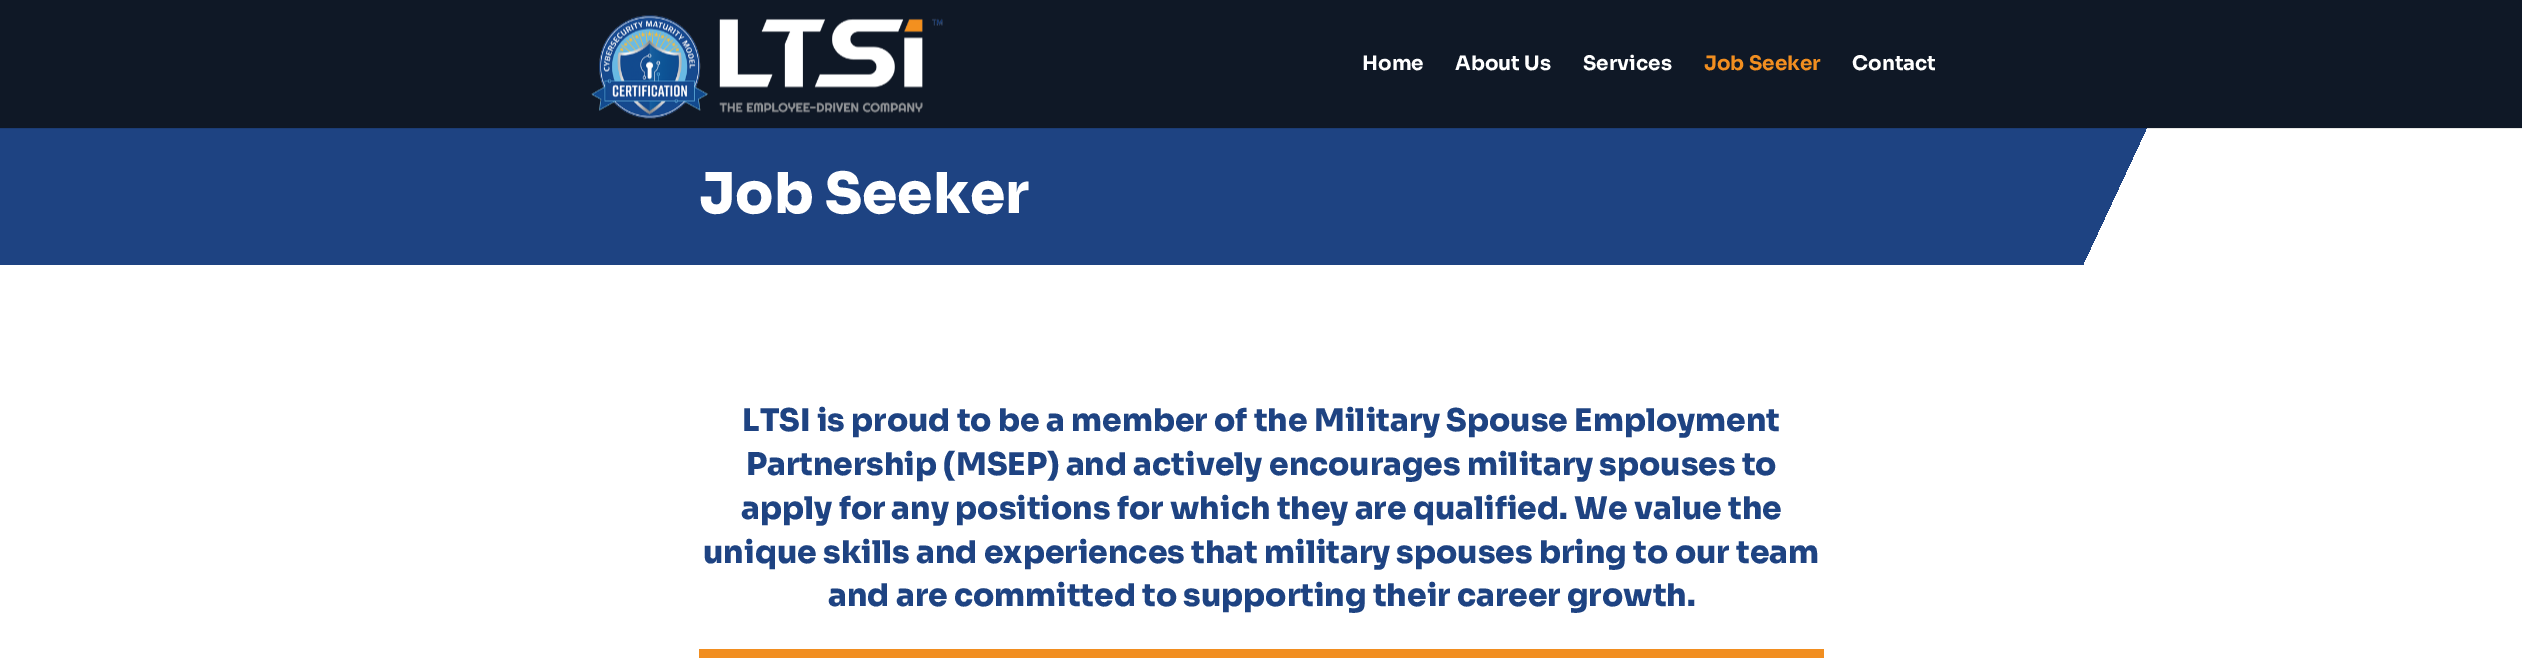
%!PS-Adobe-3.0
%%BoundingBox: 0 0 2522 665
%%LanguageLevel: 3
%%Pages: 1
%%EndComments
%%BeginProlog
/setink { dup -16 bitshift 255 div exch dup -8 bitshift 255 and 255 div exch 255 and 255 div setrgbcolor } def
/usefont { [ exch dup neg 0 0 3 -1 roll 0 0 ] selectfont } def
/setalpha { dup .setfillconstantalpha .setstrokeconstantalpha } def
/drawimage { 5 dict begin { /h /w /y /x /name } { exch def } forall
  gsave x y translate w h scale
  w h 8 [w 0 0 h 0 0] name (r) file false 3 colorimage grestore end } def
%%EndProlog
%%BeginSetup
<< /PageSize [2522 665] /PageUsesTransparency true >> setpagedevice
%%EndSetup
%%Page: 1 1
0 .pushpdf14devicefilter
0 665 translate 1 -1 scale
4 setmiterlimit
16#FFFFFF setink
0 0 2522 665 rectfill
gsave 0 128 moveto 2147 128 lineto 2147 265 lineto 0 265 lineto closepath clip newpath
<< /ShadingType 2 /ColorSpace /DeviceRGB /Coords [199 -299 2324 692] /Extend [true true] /Function << /FunctionType 3 /Domain [0 1] /Functions [<< /FunctionType 2 /Domain [0 1] /C0 [0.118 0.263 0.51] /C1 [0.118 0.263 0.51] /N 1 >> << /FunctionType 2 /Domain [0 1] /C0 [1 1 1] /C1 [1 1 1] /N 1 >>] /Bounds [0.83] /Encode [0 1 0 1] >> >> shfill grestore
0.1 setalpha
16#000000 setink
0 128 moveto 0 129 lineto 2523 129 lineto 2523 1 lineto 2522 1 lineto 2522 128 lineto closepath fill
1 setalpha
16#0F1826 setink
0 0 2522 128 rectfill
(img1.raw) 591 15 352 104 drawimage
/Sora-Bold 20 usefont
16#FFFFFF setink
[
    [(Home) 1362 70]
    [(About Us) 1455 70]
    [(Services) 1583 70]
] { aload pop moveto show } forall
16#F18E20 setink
1704 70 moveto (Job Seeker) show
16#FFFFFF setink
1852 70 moveto (Contact) show
/Sora-ExtraBold 56.25 usefont
699 213 moveto (Job Seeker) show
16#F18E20 setink
699 649 1125 9 rectfill
/Sora-ExtraBold 31.25 usefont
16#1E4382 setink
[
    [(LTSI is proud to be a member of the Military Spouse Employment) 742 431]
    [(Partnership \(MSEP\) and actively encourages military spouses to) 746 475]
    [(apply for any positions for which they are qualified. We value the) 741 519]
    [(unique skills and experiences that military spouses bring to our team) 703 563]
    [(and are committed to supporting their career growth.) 828 606]
] { aload pop moveto show } forall
.poppdf14devicefilter showpage
%%EOF
